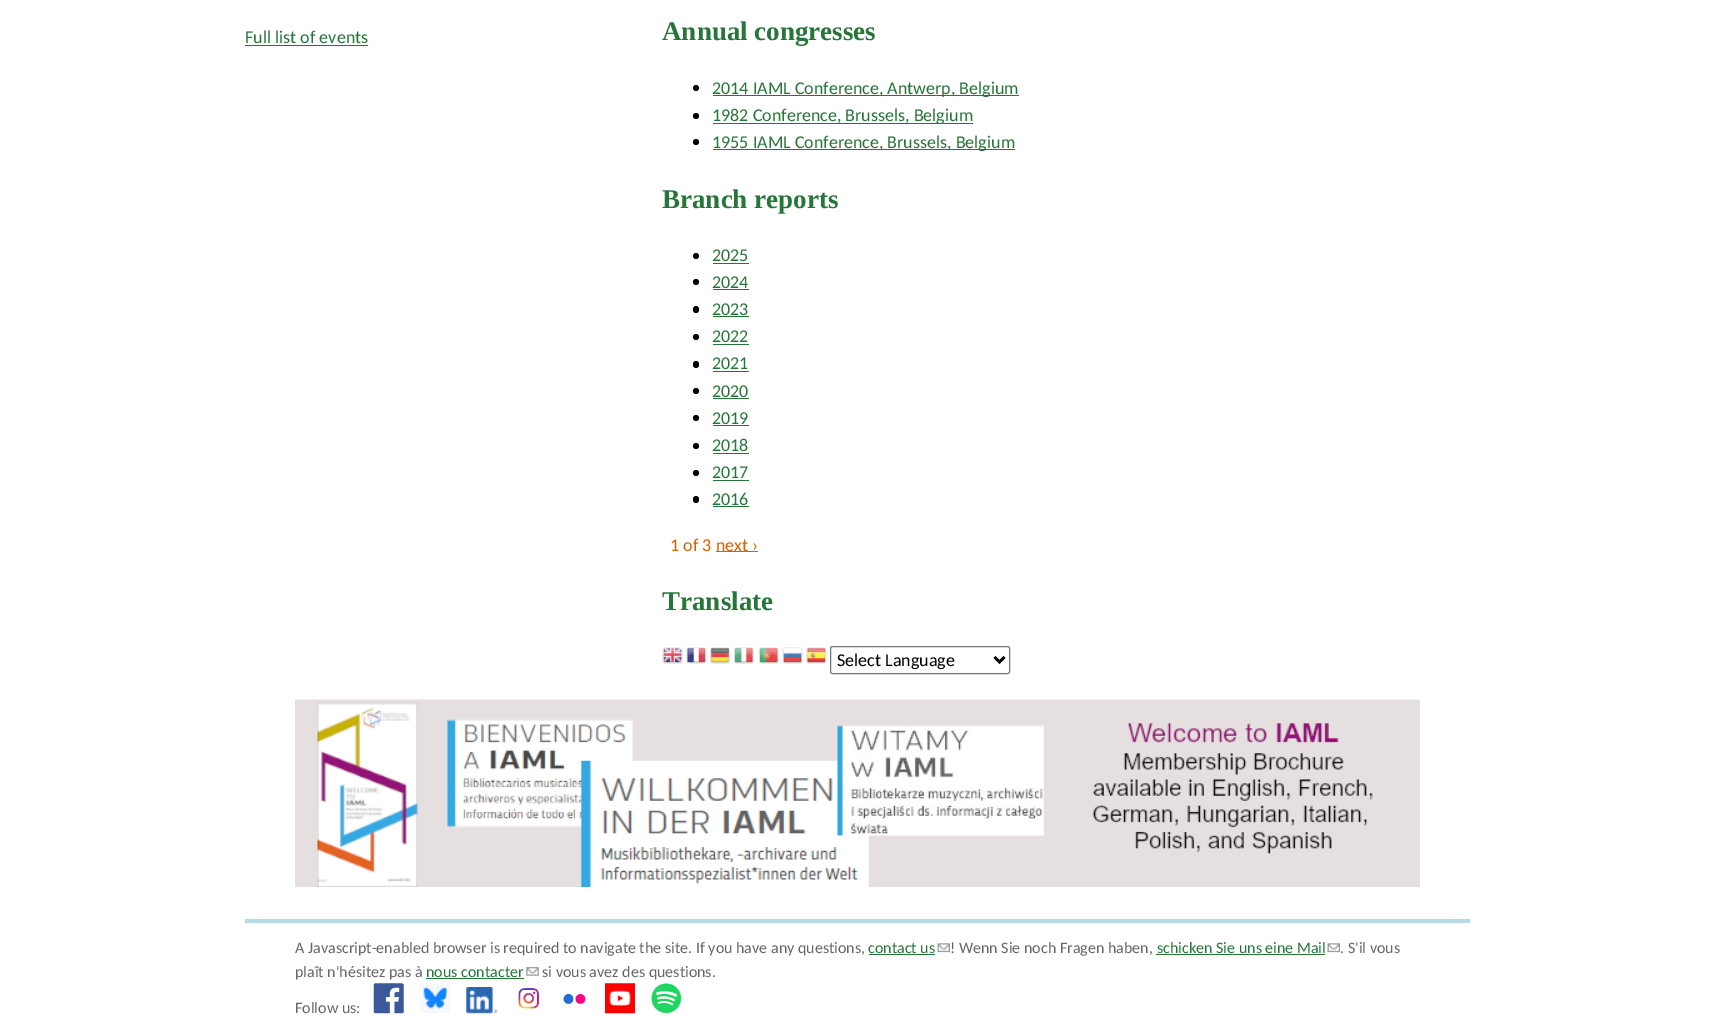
%!PS-Adobe-3.0
%%BoundingBox: 0 0 1714 1026
%%LanguageLevel: 3
%%Pages: 1
%%EndComments
%%BeginProlog
/setink { dup -16 bitshift 255 div exch dup -8 bitshift 255 and 255 div exch 255 and 255 div setrgbcolor } def
/usefont { [ exch dup neg 0 0 3 -1 roll 0 0 ] selectfont } def
/disc { newpath 0 360 arc closepath } def
/rrect { 5 dict begin { /r /h /w /y /x } { exch def } forall
  x r add y moveto x w add y 2 copy h add r arct x w add y h add x 1 index r arct
  x y h add x y r arct x y 2 copy exch w add exch r arct closepath end } def
/drawimage { 5 dict begin { /h /w /y /x /name } { exch def } forall
  gsave x y translate w h scale
  w h 8 [w 0 0 h 0 0] name (r) file false 3 colorimage grestore end } def
%%EndProlog
%%BeginSetup
<< /PageSize [1714 1026] >> setpagedevice
%%EndSetup
%%Page: 1 1
0 1026 translate 1 -1 scale
4 setmiterlimit
16#FFFFFF setink
0 0 1714 1026 rectfill
/Carlito-Regular 18 usefont
16#277639 setink
245 43 moveto (Full list of events) show
245 45 123 1 rectfill
/LiberationSerif-Bold 27 usefont
662 40 moveto (Annual congresses) show
16#000000 setink
696 88 3 disc fill
16#277639 setink
713 95 306 1 rectfill
/Carlito-Regular 18 usefont
712 94 moveto (2014 IAML Conference, Antwerp, Belgium) show
16#000000 setink
696 116 3 disc fill
16#277639 setink
713 123 260 1 rectfill
712 121 moveto (1982 Conference, Brussels, Belgium) show
16#000000 setink
696 142 3 disc fill
16#277639 setink
713 149 302 1 rectfill
712 148 moveto (1955 IAML Conference, Brussels, Belgium) show
/LiberationSerif-Bold 27 usefont
662 208 moveto (Branch reports) show
16#000000 setink
696 256 3 disc fill
/Carlito-Regular 18 usefont
16#277639 setink
712 261 moveto (2025) show
713 263 36 1 rectfill
16#000000 setink
696 282 3 disc fill
16#277639 setink
712 288 moveto (2024) show
713 289 36 1 rectfill
16#000000 setink
693 306 6 7 3 rrect fill
16#277639 setink
712 315 moveto (2023) show
713 316 36 1 rectfill
16#000000 setink
696 337 3 disc fill
16#277639 setink
712 342 moveto (2022) show
713 344 36 1 rectfill
16#000000 setink
693 361 6 7 3 rrect fill
16#277639 setink
712 369 moveto (2021) show
713 371 36 1 rectfill
16#000000 setink
696 391 3 disc fill
16#277639 setink
712 397 moveto (2020) show
713 398 36 1 rectfill
16#000000 setink
696 418 3 disc fill
16#277639 setink
712 424 moveto (2019) show
713 425 36 1 rectfill
16#000000 setink
696 446 3 disc fill
16#277639 setink
712 451 moveto (2018) show
713 453 36 1 rectfill
16#000000 setink
696 473 3 disc fill
16#277639 setink
712 478 moveto (2017) show
713 480 36 1 rectfill
16#000000 setink
693 496 6 7 3 rrect fill
16#277639 setink
712 505 moveto (2016) show
713 506 36 1 rectfill
16#D76300 setink
670 551 moveto (1 of 3) show
716 551 42 1 rectfill
716 551 moveto (next ›) show
/LiberationSerif-Bold 27 usefont
16#277639 setink
662 610 moveto (Translate) show
(img1.raw) 662 647 21 17 drawimage
(img2.raw) 686 647 21 17 drawimage
(img3.raw) 710 647 20 17 drawimage
(img4.raw) 733 647 21 17 drawimage
(img5.raw) 758 647 21 17 drawimage
(img6.raw) 782 647 21 17 drawimage
(img7.raw) 806 647 21 17 drawimage
16#767676 setink
830.5 646.5 179 27 2 rrect stroke
16#000000 setink
2.5 setlinewidth
994.5 657 moveto 999.5 662 lineto 1004.5 657 lineto stroke
/Carlito-Regular 18 usefont
837 666 moveto (Select Language) show
(img8.raw) 295 699 1125 188 drawimage
16#B4DCE7 setink
245 919 1225 4 rectfill
/Carlito-Regular 16 usefont
16#666666 setink
295 953 moveto (A Javascript-enabled browser is required to navigate the site. If you have any questions,) show
16#277639 setink
868 953 moveto (contact us) show
869 954 66 1 rectfill
(img9.raw) 937 943 13 10 drawimage
16#666666 setink
950 953 moveto (! Wenn Sie noch Fragen haben,) show
16#277639 setink
1157 953 moveto (schicken Sie uns eine Mail) show
1156 954 169 1 rectfill
(img10.raw) 1327 943 13 10 drawimage
16#666666 setink
1340 953 moveto (. S'il vous) show
295 977 moveto (plaît n'hésitez pas à) show
16#277639 setink
426 977 moveto (nous contacter) show
426 978 98 1 rectfill
(img11.raw) 526 966 13 10 drawimage
16#666666 setink
542 977 moveto (si vous avez des questions.) show
(img12.raw) 373 983 31 31 drawimage
(img13.raw) 420 983 30 30 drawimage
(img14.raw) 466 987 32 27 drawimage
(img15.raw) 518 988 23 21 drawimage
(img16.raw) 563 993 23 11 drawimage
(img17.raw) 605 983 30 31 drawimage
(img18.raw) 651 983 31 31 drawimage
295 1013 moveto (Follow us:) show
showpage
%%EOF
